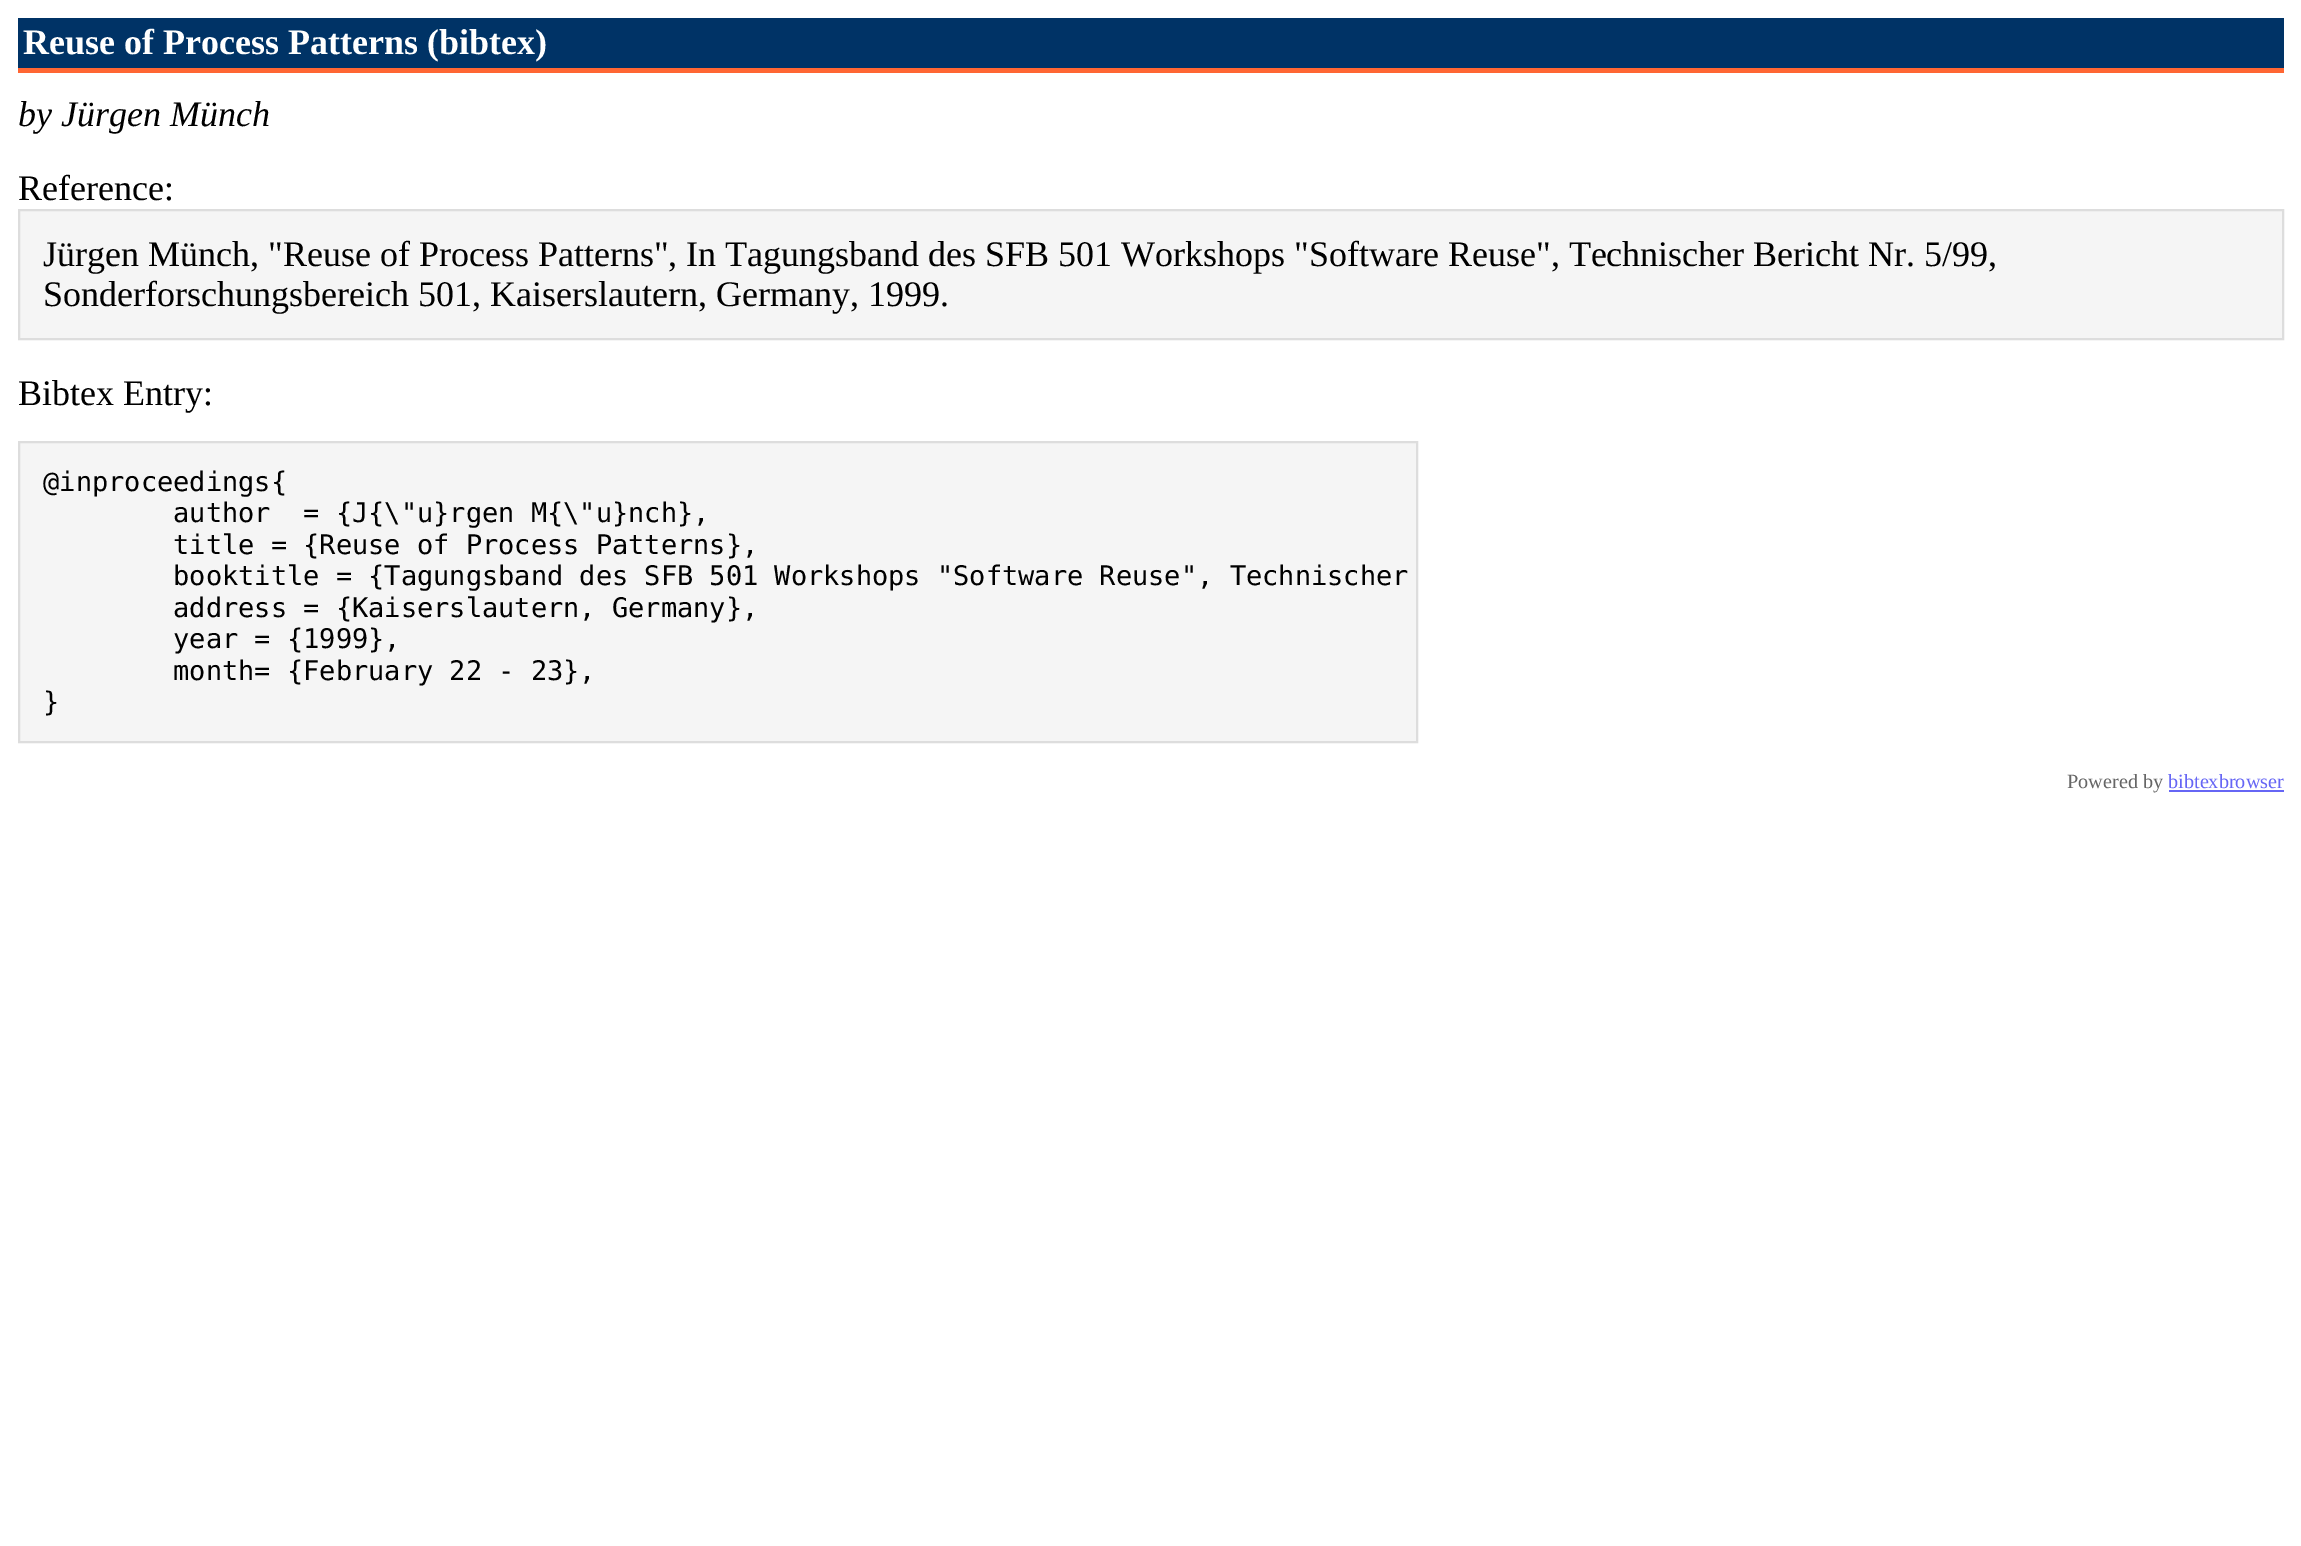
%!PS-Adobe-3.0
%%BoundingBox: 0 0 2301 1546
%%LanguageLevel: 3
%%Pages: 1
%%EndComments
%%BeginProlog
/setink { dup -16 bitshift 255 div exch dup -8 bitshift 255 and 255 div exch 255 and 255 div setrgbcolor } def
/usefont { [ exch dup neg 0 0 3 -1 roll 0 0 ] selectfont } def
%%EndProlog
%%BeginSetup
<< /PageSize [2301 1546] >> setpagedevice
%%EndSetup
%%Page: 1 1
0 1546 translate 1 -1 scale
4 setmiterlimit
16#FFFFFF setink
0 0 2301 1546 rectfill
16#003366 setink
18 18 2266 50 rectfill
16#FF6633 setink
18 68 2266 5 rectfill
/LiberationSerif-Bold 36 usefont
16#FFFFFF setink
23 54 moveto (Reuse of Process Patterns \(bibtex\)) show
/LiberationSerif-Italic 36 usefont
16#000000 setink
18 126 moveto (by Jürgen Münch) show
/LiberationSerif-Regular 36 usefont
18 200 moveto (Reference:) show
16#F5F5F5 setink
19 210 moveto 2283 210 lineto 2283 339 lineto 19 339 lineto closepath gsave fill grestore
16#DDDDDD setink
2 setlinewidth
stroke
16#000000 setink
[
    [(Jürgen Münch, "Reuse of Process Patterns", In Tagungsband des SFB 501 Workshops "Software Reuse", Technischer Bericht Nr. 5/99,) 43 266]
    [(Sonderforschungsbereich 501, Kaiserslautern, Germany, 1999.) 43 306]
    [(Bibtex Entry:) 18 405]
] { aload pop moveto show } forall
16#F5F5F5 setink
19 442 moveto 1417 442 lineto 1417 742 lineto 19 742 lineto closepath gsave fill grestore
16#DDDDDD setink
stroke
/DejaVuSansMono-Regular 27 usefont
16#000000 setink
[
    [(@inproceedings{) 43 491]
    [(author) 173 522]
    [(= {J{\\"u}rgen M{\\"u}nch},) 303 522]
    [(title = {Reuse of Process Patterns},) 173 554]
    [(booktitle = {Tagungsband des SFB 501 Workshops "Software Reuse", Technischer) 173 585]
    [(address = {Kaiserslautern, Germany},) 173 617]
    [(year = {1999},) 173 648]
    [(month= {February 22 - 23},) 173 680]
    [(}) 43 711]
] { aload pop moveto show } forall
/LiberationSerif-Regular 20.25 usefont
16#666666 setink
2067 788 moveto (Powered by) show
16#6666F5 setink
2168 788 moveto (bibtexbrowser) show
2169 790 115 2 rectfill
showpage
%%EOF
